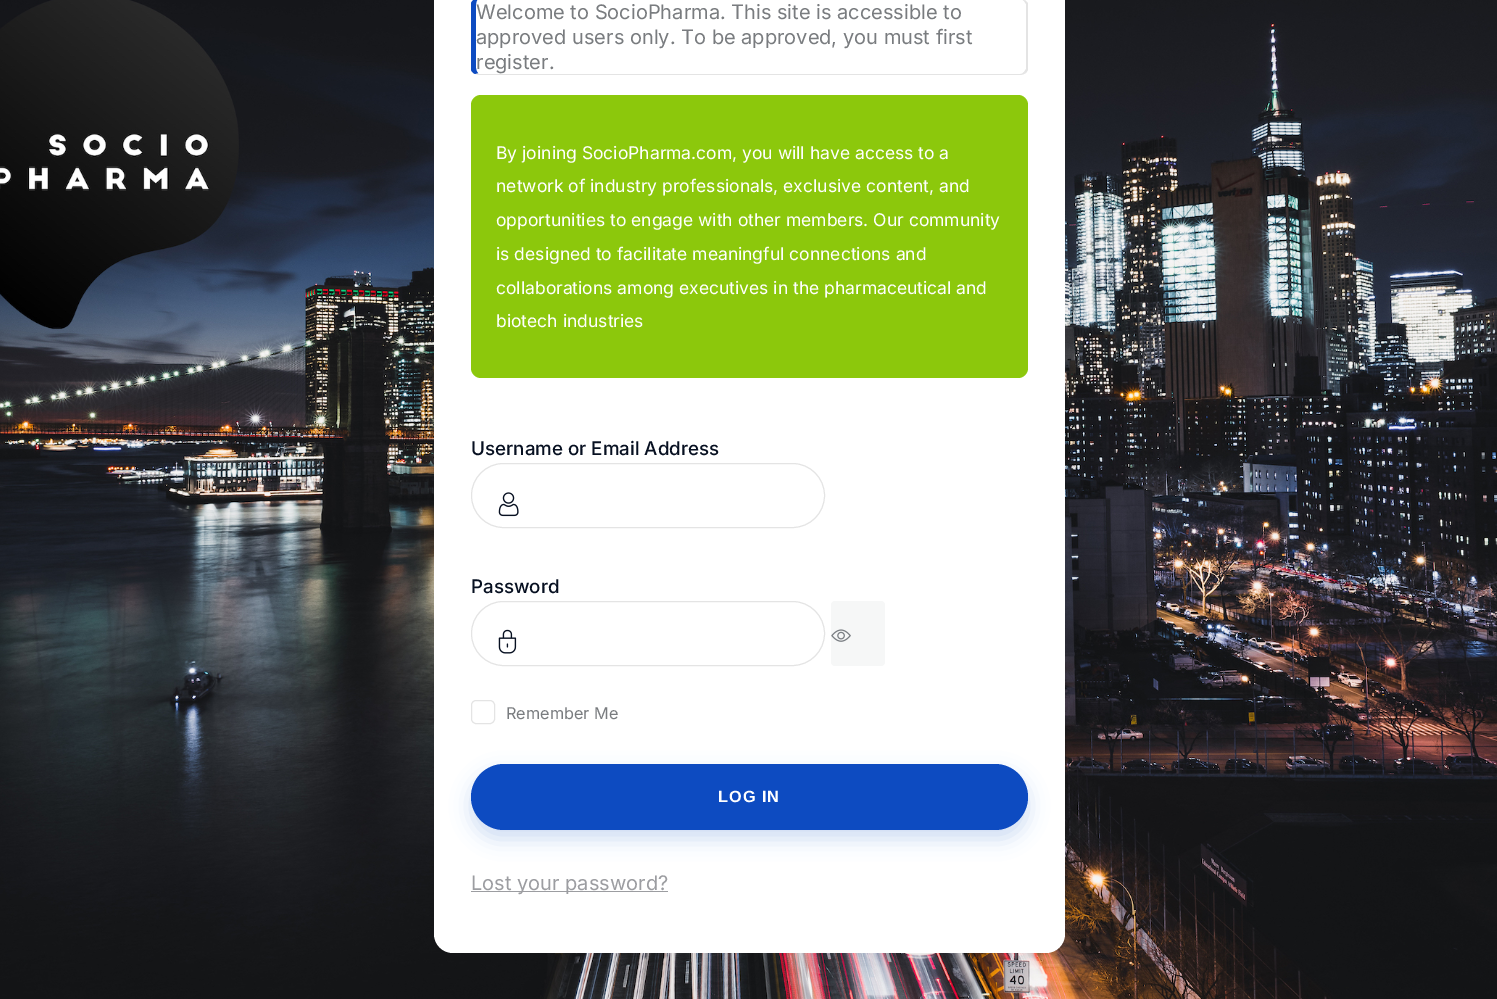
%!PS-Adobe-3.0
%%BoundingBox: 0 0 1497 999
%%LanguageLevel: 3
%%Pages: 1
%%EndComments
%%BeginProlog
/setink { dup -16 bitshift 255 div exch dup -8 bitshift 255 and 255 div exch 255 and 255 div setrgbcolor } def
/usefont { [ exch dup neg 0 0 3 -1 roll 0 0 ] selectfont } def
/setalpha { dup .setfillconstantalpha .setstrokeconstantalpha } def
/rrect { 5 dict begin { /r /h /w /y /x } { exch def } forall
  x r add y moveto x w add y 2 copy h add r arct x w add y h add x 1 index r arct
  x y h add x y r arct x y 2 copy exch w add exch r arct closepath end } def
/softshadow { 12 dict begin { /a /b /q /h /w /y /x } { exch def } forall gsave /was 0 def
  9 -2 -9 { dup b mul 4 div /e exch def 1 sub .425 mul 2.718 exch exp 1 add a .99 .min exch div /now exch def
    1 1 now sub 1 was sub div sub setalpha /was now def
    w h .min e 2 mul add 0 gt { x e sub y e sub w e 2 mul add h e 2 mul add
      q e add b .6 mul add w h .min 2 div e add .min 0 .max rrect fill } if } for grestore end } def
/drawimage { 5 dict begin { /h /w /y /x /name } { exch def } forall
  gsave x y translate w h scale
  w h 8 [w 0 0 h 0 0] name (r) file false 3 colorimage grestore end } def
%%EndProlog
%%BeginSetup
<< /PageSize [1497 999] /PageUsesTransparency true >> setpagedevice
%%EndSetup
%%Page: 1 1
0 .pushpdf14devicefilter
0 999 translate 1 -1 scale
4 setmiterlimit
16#FFFFFF setink
0 0 1497 999 rectfill
(img1.raw) 0 0 1497 999 drawimage
16#1D2626 setink
434 -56 631 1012 19 12.5 0.05 softshadow
16#FFFFFF setink
434 -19 631 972 19 rrect fill
16#E4E4E4 setink
479 -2 moveto 476 -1 lineto 478 -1 lineto 1020 -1 lineto 1022 -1 1023 0 1024 1 curveto 1025 0 lineto 1024 -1 1022 -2 1020 -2 curveto closepath fill
1025 0 moveto 1028 3 lineto 1028 70 lineto 1026 73 lineto 1024 72 lineto 1026 69 lineto 1026 4 lineto 1024 1 lineto closepath fill
479 75 moveto 1020 75 lineto 1022 75 1024 74 1026 73 curveto 1024 72 lineto 1023 73 1022 74 1020 74 curveto 479 74 lineto 478 73 lineto 475 74 lineto closepath fill
16#0D4BC1 setink
471 3 moveto 472 1 474 -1 476 -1 curveto 478 -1 lineto 477 0 476 2 476 5 curveto 476 68 lineto 476 70 477 72 478 73 curveto 475 74 lineto 473 73 472 72 471 70 curveto closepath fill
/Inter-Regular 20 usefont
16#797C7F setink
[
    [(Welcome to SocioPharma. This site is accessible to) 476 19]
    [(approved users only. To be approved, you must first) 476 44]
    [(register.) 476 69]
] { aload pop moveto show } forall
16#8CC80C setink
471 95 557 283 10 rrect fill
/Inter-Regular 17.5 usefont
16#FFFFFF setink
[
    [(By joining SocioPharma.com, you will have access to a) 496 159]
    [(network of industry professionals, exclusive content, and) 496 192]
    [(opportunities to engage with other members. Our community) 496 226]
    [(is designed to facilitate meaningful connections and) 496 260]
    [(collaborations among executives in the pharmaceutical and) 496 294]
    [(biotech industries) 496 327]
] { aload pop moveto show } forall
/Inter-Medium 18.75 usefont
16#071021 setink
471 455 moveto (Username or Email Address) show
16#E4E4E4 setink
471.5 463.5 353 64 32 rrect stroke
(img2.raw) 498 492 21 25 drawimage
16#071021 setink
471 593 moveto (Password) show
16#E4E4E4 setink
471.5 601.5 353 64 32 rrect stroke
(img3.raw) 498 629 19 25 drawimage
16#F6F7F7 setink
831 601 54 65 4 rrect fill
(img4.raw) 831 629 20 13 drawimage
16#E4E4E4 setink
471.5 700.5 23 23 4.5 rrect stroke
/Inter-Regular 16.25 usefont
16#797C7F setink
506 719 moveto (Remember Me) show
16#0D4BC1 setink
471 773 557 66 33 10 0.2 softshadow
471 764 557 66 33 rrect fill
/LiberationSans-Bold 16.25 usefont
16#FFFFFF setink
718 802 moveto 1 0 (LOG IN) ashow
16#9C9DA1 setink
471 891 197 1 rectfill
/Inter-Regular 20 usefont
471 890 moveto (Lost your password?) show
.poppdf14devicefilter showpage
%%EOF
